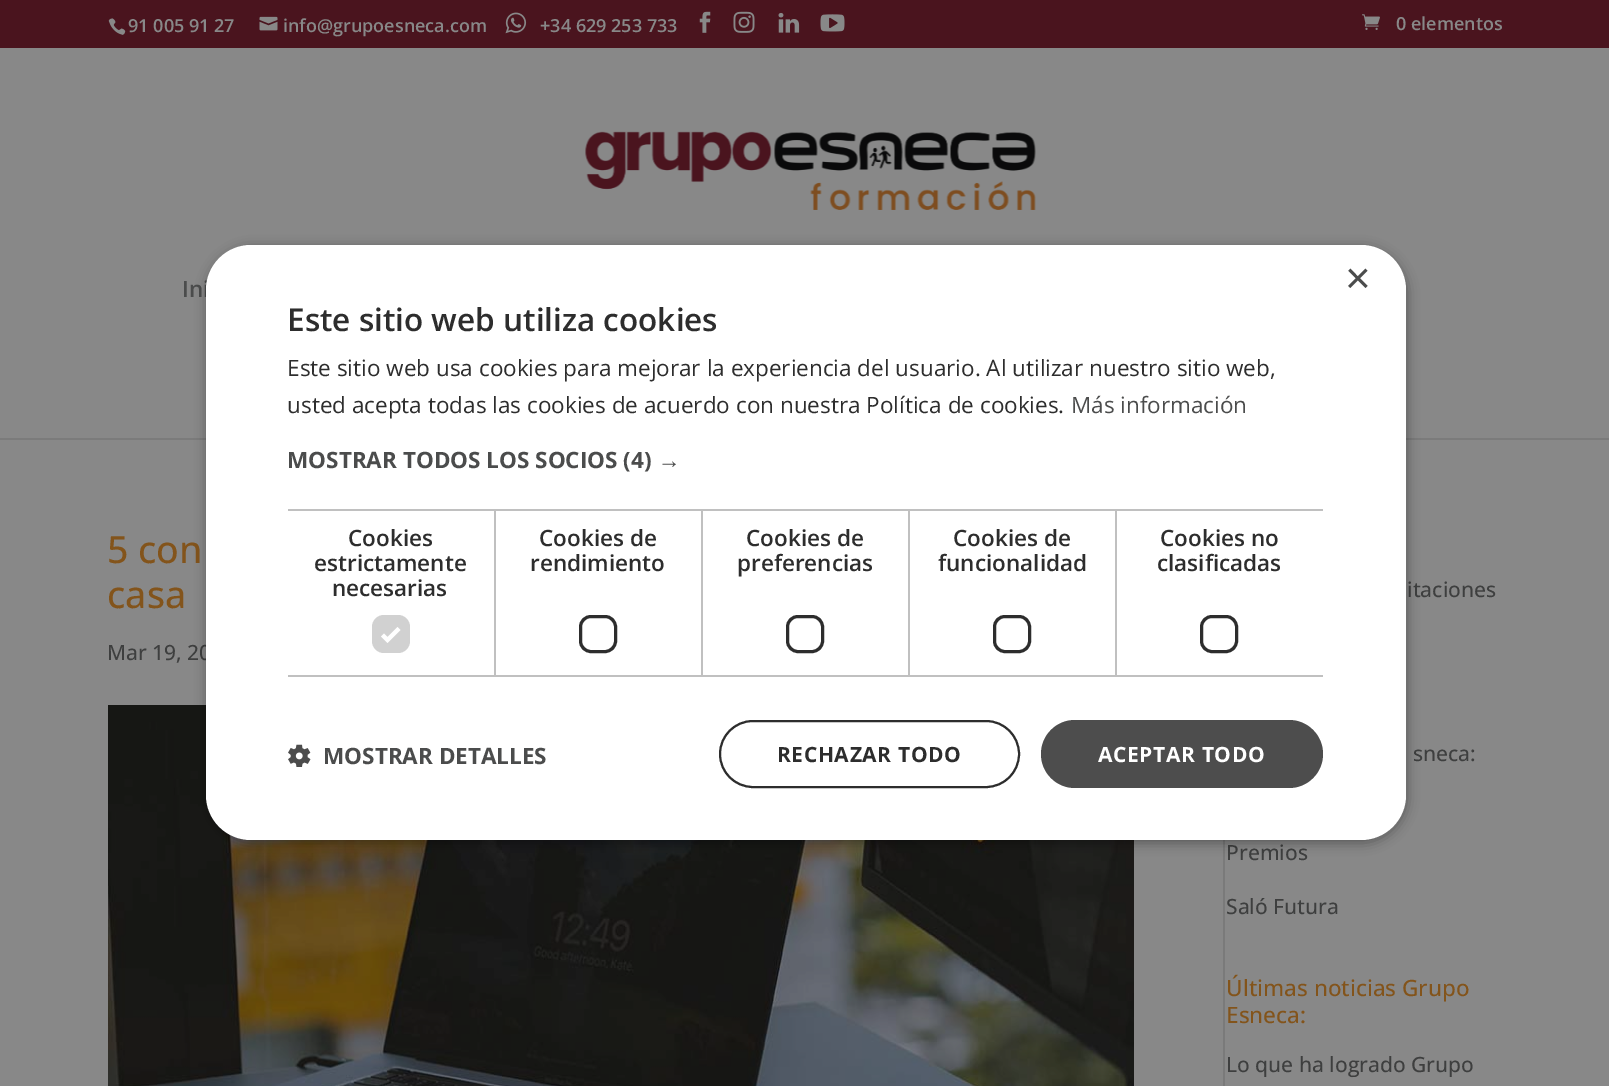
%!PS-Adobe-3.0
%%BoundingBox: 0 0 1609 1086
%%LanguageLevel: 3
%%Pages: 1
%%EndComments
%%BeginProlog
/setink { dup -16 bitshift 255 div exch dup -8 bitshift 255 and 255 div exch 255 and 255 div setrgbcolor } def
/usefont { [ exch dup neg 0 0 3 -1 roll 0 0 ] selectfont } def
/setalpha { dup .setfillconstantalpha .setstrokeconstantalpha } def
/rrect { 5 dict begin { /r /h /w /y /x } { exch def } forall
  x r add y moveto x w add y 2 copy h add r arct x w add y h add x 1 index r arct
  x y h add x y r arct x y 2 copy exch w add exch r arct closepath end } def
/softshadow { 12 dict begin { /a /b /q /h /w /y /x } { exch def } forall gsave /was 0 def
  9 -2 -9 { dup b mul 4 div /e exch def 1 sub .425 mul 2.718 exch exp 1 add a .99 .min exch div /now exch def
    1 1 now sub 1 was sub div sub setalpha /was now def
    w h .min e 2 mul add 0 gt { x e sub y e sub w e 2 mul add h e 2 mul add
      q e add b .6 mul add w h .min 2 div e add .min 0 .max rrect fill } if } for grestore end } def
/drawimage { 5 dict begin { /h /w /y /x /name } { exch def } forall
  gsave x y translate w h scale
  w h 8 [w 0 0 h 0 0] name (r) file false 3 colorimage grestore end } def
%%EndProlog
%%BeginSetup
<< /PageSize [1609 1086] /PageUsesTransparency true >> setpagedevice
%%EndSetup
%%Page: 1 1
0 .pushpdf14devicefilter
0 1086 translate 1 -1 scale
4 setmiterlimit
16#888888 setink
0 0 1609 1086 rectfill
16#4A141E setink
0 0 1609 48 rectfill
(img1.raw) 108 18 18 17 drawimage
/OpenSans-SemiBold 18 usefont
16#888888 setink
128 32 moveto (91 005 91 27) show
(img2.raw) 259 16 19 15 drawimage
283 32 moveto (info@grupoesneca.com) show
(img3.raw) 505 12 22 22 drawimage
540 32 moveto (+34 629 253 733) show
(img4.raw) 699 11 12 22 drawimage
(img5.raw) 733 11 22 22 drawimage
(img6.raw) 778 12 22 21 drawimage
(img7.raw) 820 14 25 18 drawimage
(img8.raw) 1362 14 18 16 drawimage
1396 30 moveto (0 elementos) show
0.1 setalpha
16#090909 setink
0 438 moveto 0 440 lineto 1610 440 lineto 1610 50 lineto 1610 438 lineto closepath fill
1 setalpha
(img9.raw) 585 131 451 79 drawimage
/OpenSans-SemiBold 22.5 usefont
16#4B4C4C setink
182 297 moveto (Ini) show
/OpenSans-Medium 37.5 usefont
16#83541B setink
107 563 moveto (5 con) show
107 608 moveto (casa) show
/OpenSans-Medium 21 usefont
16#3E3F3F setink
107 660 moveto (Mar 19, 20) show
(img10.raw) 108 705 1026 381 drawimage
[
    [(itaciones) 1407 597]
    [(sneca:) 1413 761]
    [(Premios) 1226 860]
    [(Saló Futura) 1226 914]
] { aload pop moveto show } forall
/OpenSans-Medium 22.5 usefont
16#83541B setink
1226 996 moveto (Últimas noticias Grupo) show
1226 1023 moveto (Esneca:) show
/OpenSans-Medium 21 usefont
16#3E3F3F setink
1226 1072 moveto (Lo que ha logrado Grupo) show
16#7A7A7A setink
1223 840 2 246 rectfill
16#000000 setink
207 248 1200 595 45 6 0.35 softshadow
16#FFFFFF setink
206 245 1200 595 45 rrect fill
/LiberationSans-Regular 44 usefont
16#4B4C4C setink
1345 293 moveto (×) show
/OpenSans-SemiBold 31.5 usefont
16#2D2D2D setink
287 331 moveto (Este sitio web utiliza cookies) show
/OpenSans-Regular 22.5 usefont
287 376 moveto (Este sitio web usa cookies para mejorar la experiencia del usuario. Al utilizar nuestro sitio web,) show
287 413 moveto (usted acepta todas las cookies de acuerdo con nuestra Política de cookies.) show
16#4B4C4C setink
1071 413 moveto (Más información) show
/OpenSans-Bold 22.5 usefont
287 468 moveto (MOSTRAR TODOS LOS SOCIOS \(4\)) show
/LiberationSans-Bold 22.5 usefont
658 468 moveto (→) show
[
    [288 509 207 2 16#C0C0C0]
    [494 509 2 168 16#C0C0C0]
    [288 675 207 2 16#C0C0C0]
] { aload pop setink rectfill } forall
/OpenSans-SemiBold 22.5 usefont
16#2D2D2D setink
[
    [(Cookies) 348 546]
    [(estrictamente) 314 571]
    [(necesarias) 332 596]
] { aload pop moveto show } forall
16#D1D1D1 setink
372 615 38 38 12 rrect fill
16#FFFFFF setink
3.9 setlinewidth
382.5 635 moveto 387.5 640 lineto 399 628.5 lineto stroke
[
    [495 509 207 2 16#C0C0C0]
    [701 509 2 168 16#C0C0C0]
    [495 675 207 2 16#C0C0C0]
] { aload pop setink rectfill } forall
16#2D2D2D setink
539 546 moveto (Cookies de) show
530 571 moveto (rendimiento) show
3 setlinewidth
580.5 616.5 35 35 10.5 rrect stroke
[
    [702 509 207 2 16#C0C0C0]
    [908 509 2 168 16#C0C0C0]
    [702 675 207 2 16#C0C0C0]
] { aload pop setink rectfill } forall
16#2D2D2D setink
746 546 moveto (Cookies de) show
737 571 moveto (preferencias) show
787.5 616.5 35 35 10.5 rrect stroke
[
    [909 509 207 2 16#C0C0C0]
    [1115 509 2 168 16#C0C0C0]
    [909 675 414 2 16#C0C0C0]
] { aload pop setink rectfill } forall
16#2D2D2D setink
953 546 moveto (Cookies de) show
938 571 moveto (funcionalidad) show
994.5 616.5 35 35 10.5 rrect stroke
16#C0C0C0 setink
1116 509 207 2 rectfill
16#2D2D2D setink
1160 546 moveto (Cookies no) show
1157 571 moveto (clasificadas) show
1201.5 616.5 35 35 10.5 rrect stroke
(img11.raw) 288 744 23 23 drawimage
/OpenSans-Bold 22.5 usefont
16#4B4C4C setink
323 764 moveto (MOSTRAR DETALLES) show
16#2D2D2D setink
2 setlinewidth
720 721 299 66 33 rrect stroke
/OpenSans-Bold 21 usefont
777 762 moveto 0.6 0 (RECHAZAR TODO) ashow
16#4D4D4D setink
1041 720 282 68 34 rrect fill
16#FFFFFF setink
1098 762 moveto 0.6 0 (ACEPTAR TODO) ashow
.poppdf14devicefilter showpage
%%EOF
